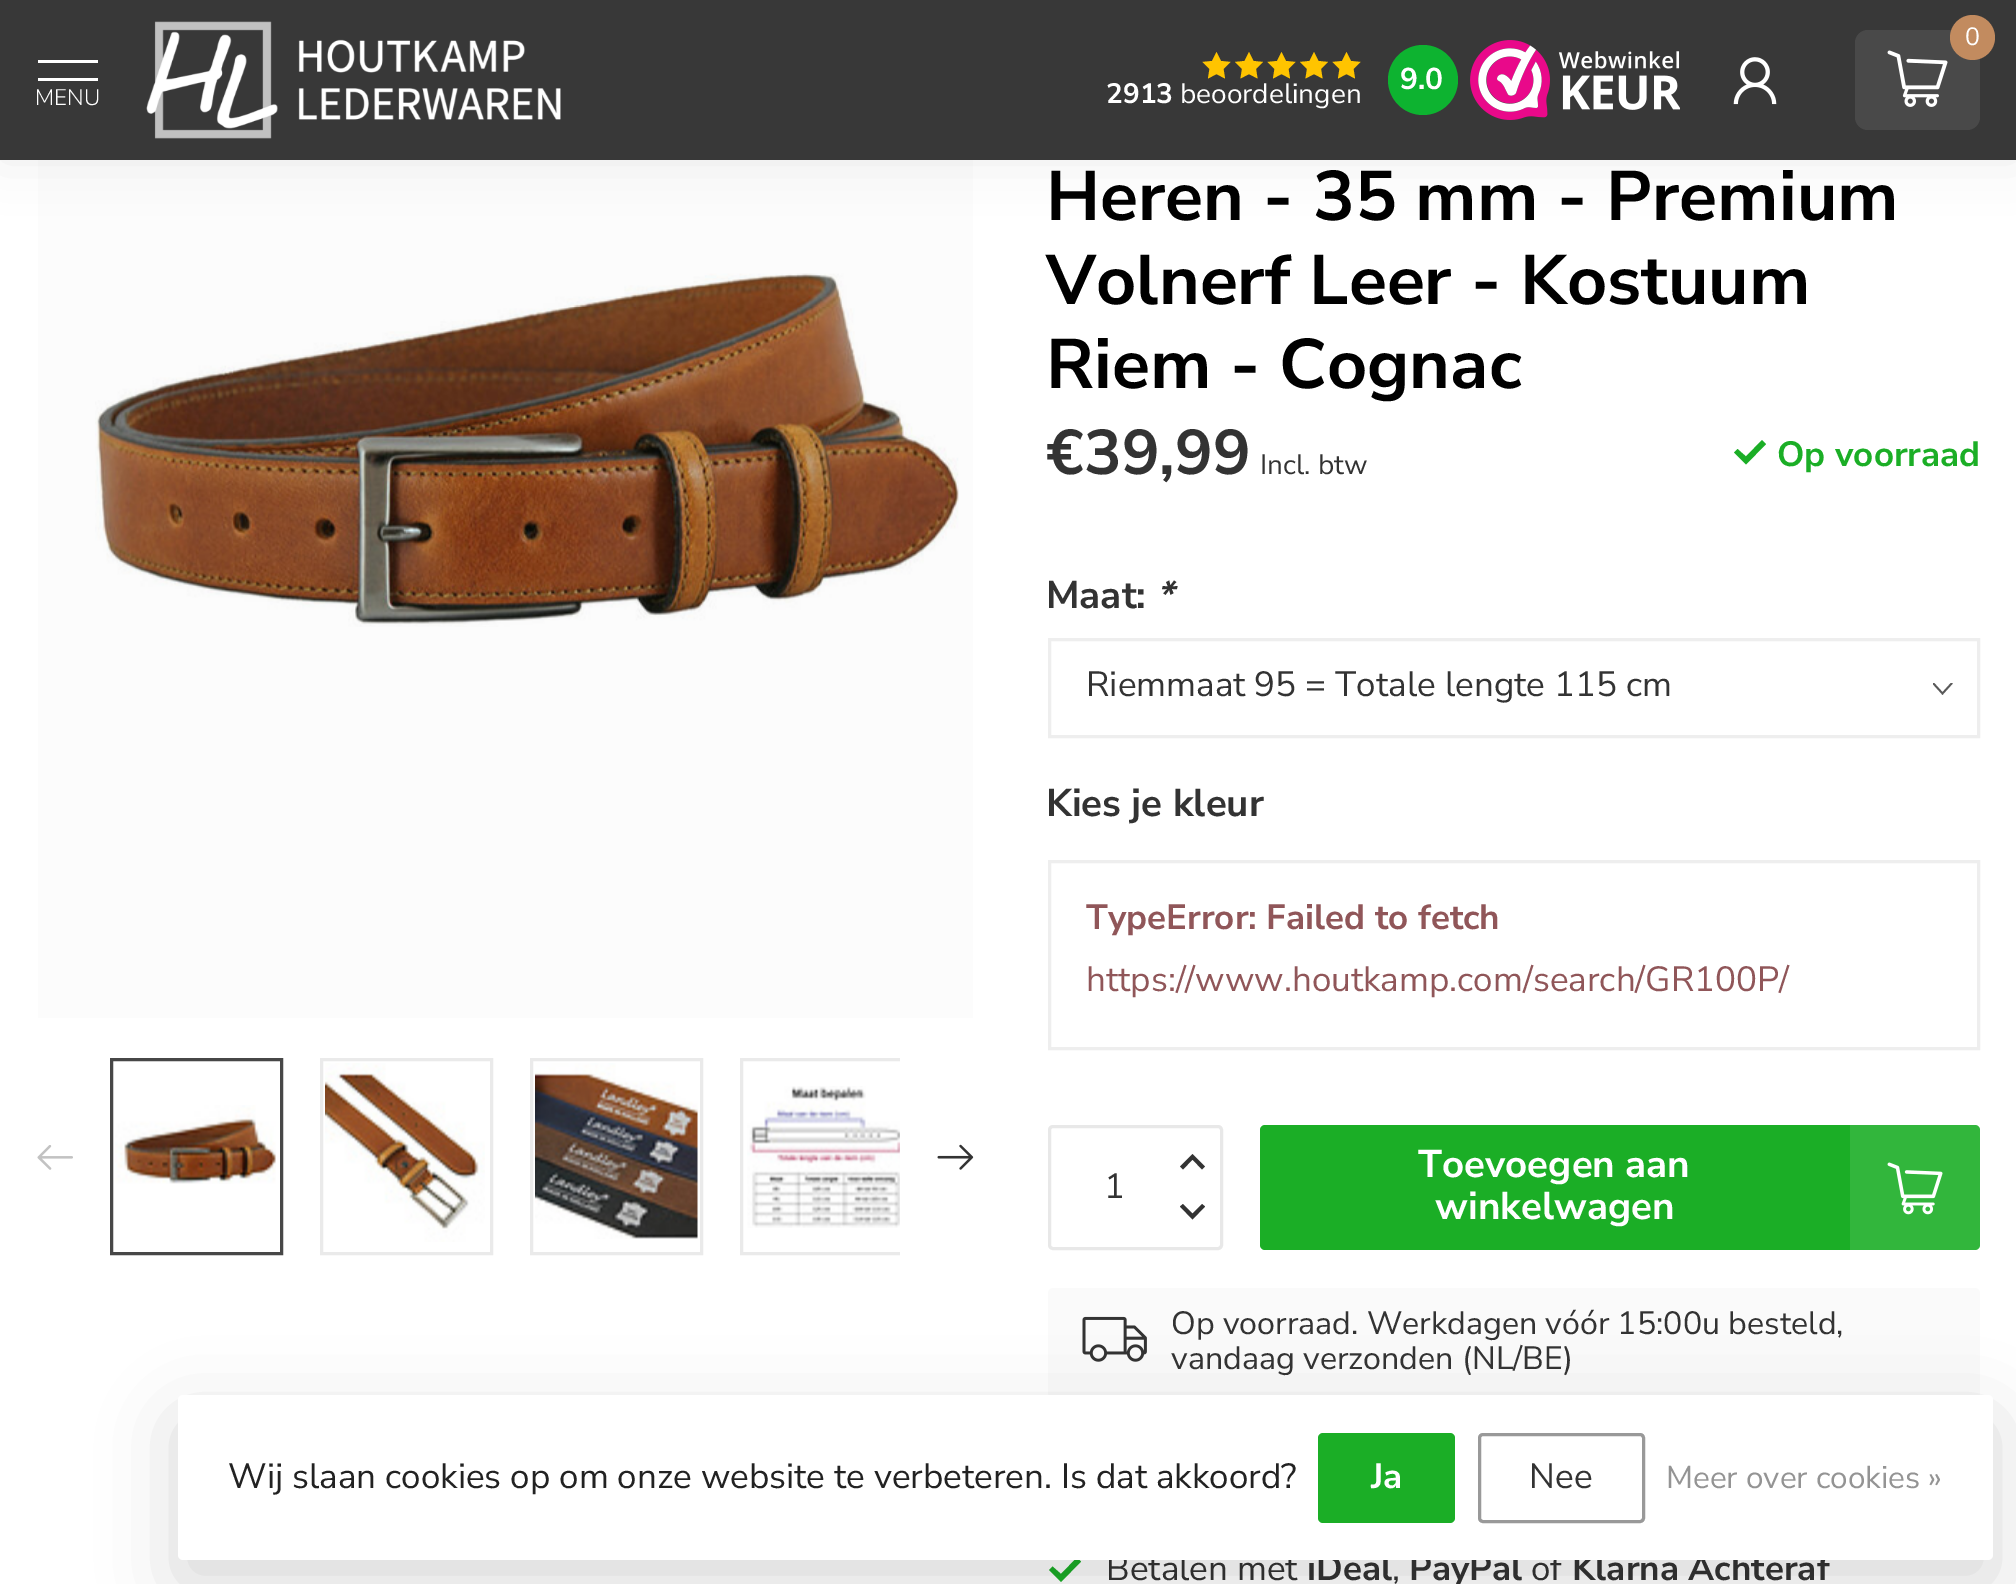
%!PS-Adobe-3.0
%%BoundingBox: 0 0 2016 1584
%%LanguageLevel: 3
%%Pages: 1
%%EndComments
%%BeginProlog
/setink { dup -16 bitshift 255 div exch dup -8 bitshift 255 and 255 div exch 255 and 255 div setrgbcolor } def
/usefont { [ exch dup neg 0 0 3 -1 roll 0 0 ] selectfont } def
/setalpha { dup .setfillconstantalpha .setstrokeconstantalpha } def
/disc { newpath 0 360 arc closepath } def
/rrect { 5 dict begin { /r /h /w /y /x } { exch def } forall
  x r add y moveto x w add y 2 copy h add r arct x w add y h add x 1 index r arct
  x y h add x y r arct x y 2 copy exch w add exch r arct closepath end } def
/softshadow { 12 dict begin { /a /b /q /h /w /y /x } { exch def } forall gsave /was 0 def
  9 -2 -9 { dup b mul 4 div /e exch def 1 sub .425 mul 2.718 exch exp 1 add a .99 .min exch div /now exch def
    1 1 now sub 1 was sub div sub setalpha /was now def
    w h .min e 2 mul add 0 gt { x e sub y e sub w e 2 mul add h e 2 mul add
      q e add b .6 mul add w h .min 2 div e add .min 0 .max rrect fill } if } for grestore end } def
/drawimage { 5 dict begin { /h /w /y /x /name } { exch def } forall
  gsave x y translate w h scale
  w h 8 [w 0 0 h 0 0] name (r) file false 3 colorimage grestore end } def
%%EndProlog
%%BeginSetup
<< /PageSize [2016 1584] /PageUsesTransparency true >> setpagedevice
%%EndSetup
%%Page: 1 1
0 .pushpdf14devicefilter
0 1584 translate 1 -1 scale
4 setmiterlimit
16#FFFFFF setink
0 0 2016 1584 rectfill
16#FCFCFC setink
38 160 935 858 rectfill
16#000000 setink
0 -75 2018 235 0 25 0.07 softshadow
16#383838 setink
0 0 2016 160 rectfill
16#494949 setink
1855 30 125 100 13 rrect fill
16#C28B5F setink
1972.5 37.5 22.5 disc fill
/NunitoSans-Regular 25 usefont
16#FFFFFF setink
1965 45 moveto (0) show
(img1.raw) 1887 50 61 57 drawimage
(img2.raw) 1733 57 44 48 drawimage
38 60 60 3 rectfill
38 78 60 3 rectfill
/NunitoSans-Light 22.5 usefont
35 105 moveto (MENU) show
(img3.raw) 146 21 415 118 drawimage
16#0DB330 setink
1423 80 35 disc fill
/NunitoSans-Bold 30 usefont
16#FFFFFF setink
1400 89 moveto (9.0) show
16#FFC400 setink
1216.5 52 moveto 1221 61 lineto 1230.5 62 lineto 1223.5 69 lineto 1225 78.5 lineto 1216.5 74 lineto 1208 78.5 lineto 1209.5 69 lineto 1202.5 62 lineto 1212 61 lineto closepath 1249 52 moveto 1253.5 61 lineto 1263 62 lineto 1256 69 lineto 1257.5 78.5 lineto 1249 74 lineto 1240.5 78.5 lineto 1242 69 lineto 1235 62 lineto 1244.5 61 lineto closepath fill
1281.5 52 moveto 1286 61 lineto 1295.5 62 lineto 1288.5 69 lineto 1290 78.5 lineto 1281.5 74 lineto 1273 78.5 lineto 1274.5 69 lineto 1267.5 62 lineto 1277 61 lineto closepath 1314 52 moveto 1318.5 61 lineto 1328 62 lineto 1321 69 lineto 1322.5 78.5 lineto 1314 74 lineto 1305.5 78.5 lineto 1307 69 lineto 1300 62 lineto 1309.5 61 lineto closepath fill
1346.5 52 moveto 1351 61 lineto 1360.5 62 lineto 1353.5 69 lineto 1355 78.5 lineto 1346.5 74 lineto 1338 78.5 lineto 1339.5 69 lineto 1332.5 62 lineto 1342 61 lineto closepath fill
/NunitoSans-Bold 28 usefont
16#FFFFFF setink
1106 103 moveto (2913) show
/NunitoSans-Regular 28 usefont
1180 103 moveto (beoordelingen) show
(img4.raw) 1470 40 210 80 drawimage
(img5.raw) 95 273 864 354 drawimage
(img6.raw) 37 1145 36 25 drawimage
16#474747 setink
3 setlinewidth
111.5 1059.5 170 194 rectstroke
(img7.raw) 115 1105 161 79 drawimage
16#EAEAEA setink
321.5 1059.5 170 194 rectstroke
(img8.raw) 325 1063 160 179 drawimage
531.5 1059.5 170 194 rectstroke
(img9.raw) 535 1063 163 176 drawimage
gsave
110 1055 790 203 rectclip
741.5 1059.5 170 194 rectstroke
grestore
(img10.raw) 747 1086 153 142 drawimage
(img11.raw) 937 1144 37 26 drawimage
/NunitoSans-Bold 70 usefont
16#000000 setink
[
    [(Heren - 35 mm - Premium) 1046 220]
    [(Volnerf Leer - Kostuum) 1046 304]
    [(Riem - Cognac) 1046 388]
] { aload pop moveto show } forall
/NunitoSans-Bold 63 usefont
16#333333 setink
1046 474 moveto (€39,99) show
/NunitoSans-Regular 28 usefont
1260 474 moveto (Incl. btw) show
16#1BAE26 setink
1746 464.5 moveto 1734 452.5 lineto 1737.5 449 lineto 1746 456.5 lineto 1762 440 lineto 1766 444 lineto closepath fill
/NunitoSans-Bold 35 usefont
1777 466 moveto (Op voorraad) show
/NunitoSans-Bold 38.5 usefont
16#333333 setink
1046 608 moveto (Maat:) show
/NunitoSans-BoldItalic 38.5 usefont
1156 608 moveto (*) show
gsave
1933 683 20 12 rectclip
16#595959 setink
1.8 setlinewidth
1952 683 moveto 1942.5 693.5 lineto 1933 683 lineto stroke
grestore
16#EEEEEE setink
1049.5 639.5 929 97 rectstroke
/NunitoSans-Regular 35 usefont
16#333333 setink
1086 696 moveto (Riemmaat 95 = Totale lengte 115 cm) show
/NunitoSans-Bold 38.5 usefont
1046 816 moveto (Kies je kleur) show
16#EEEEEE setink
1049.5 861.5 929 187 rectstroke
/NunitoSans-Bold 35 usefont
16#905659 setink
1086 929 moveto (TypeError: Failed to fetch) show
/NunitoSans-Regular 35 usefont
1086 991 moveto (https://www.houtkamp.com/search/GR100P/) show
16#E8E8E8 setink
1049.5 1126.5 172 122 3.5 rrect stroke
16#333333 setink
1180 1166.5 moveto 1183 1169.5 lineto 1192.5 1159.5 lineto 1202 1169.5 lineto 1205 1166.5 lineto 1192.5 1154 lineto closepath fill
1104 1198 moveto (1) show
1180 1206.5 moveto 1183 1204 lineto 1192.5 1213.5 lineto 1202 1204 lineto 1205 1206.5 lineto 1192.5 1219.5 lineto closepath fill
16#1BAE26 setink
1260 1125 720 125 5 rrect fill
/NunitoSans-Bold 38.5 usefont
16#FFFFFF setink
1418 1177 moveto (Toevoegen aan) show
1435 1219 moveto (winkelwagen) show
(img12.raw) 1887 1162 56 53 drawimage
0.1 setalpha
1850 1125 130 125 rectfill
1 setalpha
16#FAFAFA setink
1048 1288 932 110 5 rrect fill
(img13.raw) 1082 1316 65 46 drawimage
/NunitoSans-Regular 32.2 usefont
16#333333 setink
1171 1334 moveto (Op voorraad. Werkdagen vóór 15:00u besteld,) show
1171 1369 moveto (vandaag verzonden \(NL/BE\)) show
16#1BAE26 setink
1061 1582 moveto 1049 1570 lineto 1052.5 1566.5 lineto 1061 1574 lineto 1077 1557.5 lineto 1081 1561.5 lineto closepath fill
/NunitoSans-Regular 35 usefont
16#333333 setink
1106 1580 moveto (Betalen met) show
/NunitoSans-Bold 35 usefont
1307 1580 moveto (iDeal) show
/NunitoSans-Regular 35 usefont
1392 1580 moveto (,) show
/NunitoSans-Bold 35 usefont
1409 1580 moveto (PayPal) show
/NunitoSans-Regular 35 usefont
1531 1580 moveto (of) show
/NunitoSans-Bold 35 usefont
1572 1580 moveto (Klarna Achteraf) show
16#000000 setink
178 1420 1815 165 5 37.5 0.15 softshadow
16#FFFFFF setink
178 1395 1815 165 5 rrect fill
/NunitoSans-Regular 35 usefont
16#222222 setink
228 1488 moveto (Wij slaan cookies op om onze website te verbeteren. Is dat akkoord?) show
16#1BAE26 setink
1318 1433 137 90 5 rrect fill
/NunitoSans-Bold 35 usefont
16#FFFFFF setink
1371 1488 moveto (Ja) show
16#999999 setink
1479.5 1434.5 164 87 3.5 rrect stroke
/NunitoSans-Regular 35 usefont
16#333333 setink
1529 1488 moveto (Nee) show
/NunitoSans-Regular 31.5 usefont
16#949494 setink
1666 1488 moveto (Meer over cookies ») show
.poppdf14devicefilter showpage
%%EOF
